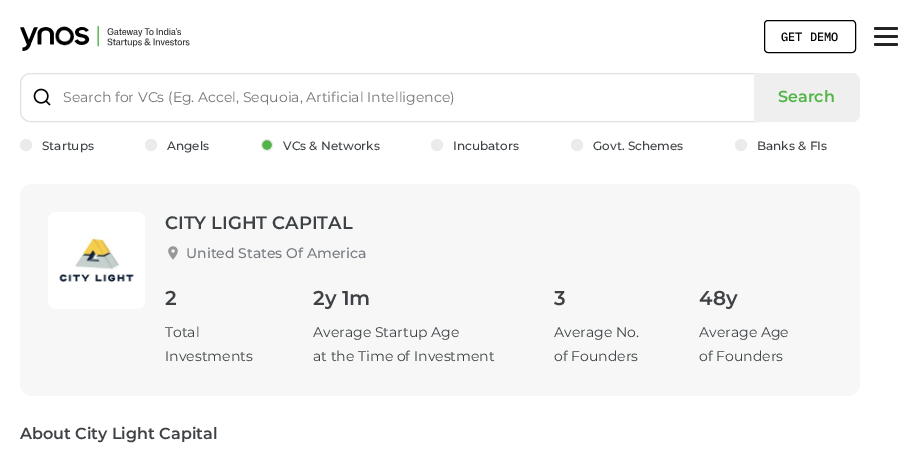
%!PS-Adobe-3.0
%%BoundingBox: 0 0 918 453
%%LanguageLevel: 3
%%Pages: 1
%%EndComments
%%BeginProlog
/setink { dup -16 bitshift 255 div exch dup -8 bitshift 255 and 255 div exch 255 and 255 div setrgbcolor } def
/usefont { [ exch dup neg 0 0 3 -1 roll 0 0 ] selectfont } def
/disc { newpath 0 360 arc closepath } def
/rrect { 5 dict begin { /r /h /w /y /x } { exch def } forall
  x r add y moveto x w add y 2 copy h add r arct x w add y h add x 1 index r arct
  x y h add x y r arct x y 2 copy exch w add exch r arct closepath end } def
/drawimage { 5 dict begin { /h /w /y /x /name } { exch def } forall
  gsave x y translate w h scale
  w h 8 [w 0 0 h 0 0] name (r) file false 3 colorimage grestore end } def
%%EndProlog
%%BeginSetup
<< /PageSize [918 453] >> setpagedevice
%%EndSetup
%%Page: 1 1
0 453 translate 1 -1 scale
4 setmiterlimit
16#FFFFFF setink
0 0 918 453 rectfill
(img1.raw) 20 25 170 26 drawimage
16#000000 setink
764.5 20.5 91 32 3.5 rrect stroke
/IBMPlexMono-Medium 12 usefont
781 41 moveto (GET DEMO) show
16#232323 setink
874 35 24 3 1.5 rrect fill
874 27 24 3 1.5 rrect fill
874 43 24 3 1.5 rrect fill
16#DFE1E5 setink
30 73.5 moveto 758.5 73.5 lineto 758.5 121.5 lineto 30 121.5 lineto 25 121.5 20.5 117 20.5 112 curveto 20.5 83 lineto 20.5 78 25 73.5 30 73.5 curveto closepath stroke
(img2.raw) 33 88 18 18 drawimage
/Montserrat-Regular 14 usefont
16#757575 setink
63 102 moveto (Search for VCs \(Eg. Accel, Sequoia, Artificial Intelligence\)) show
16#EFEFEF setink
754 73 moveto 852 73 lineto 856.5 73 860 76.5 860 81 curveto 860 114 lineto 860 118.5 856.5 122 852 122 curveto 754 122 lineto closepath fill
/Montserrat-SemiBold 16 usefont
16#50B446 setink
778 102 moveto (Search) show
16#EBEBEB setink
26 145 5.5 disc gsave fill grestore
stroke
/Montserrat-Medium 12 usefont
16#3E4245 setink
42 150 moveto (Startups) show
16#EBEBEB setink
151 145 5.5 disc gsave fill grestore
stroke
16#3E4245 setink
167 150 moveto (Angels) show
16#50B446 setink
267 145 5.5 disc gsave fill grestore
16#EBEBEB setink
stroke
16#3E4245 setink
283 150 moveto (VCs & Networks) show
16#EBEBEB setink
437 145 5.5 disc gsave fill grestore
stroke
16#3E4245 setink
453 150 moveto (Incubators) show
16#EBEBEB setink
577 145 5.5 disc gsave fill grestore
stroke
16#3E4245 setink
593 150 moveto (Govt. Schemes) show
16#EBEBEB setink
741 145 5.5 disc gsave fill grestore
stroke
16#3E4245 setink
757 150 moveto (Banks & FIs) show
16#F7F7F7 setink
20 184 840 212 12 rrect fill
16#FFFFFF setink
48 212 97 97 8 rrect fill
(img3.raw) 59 236 75 46 drawimage
/Montserrat-SemiBold 18 usefont
16#3E4245 setink
165 229 moveto (CITY LIGHT CAPITAL) show
(img4.raw) 168 246 10 14 drawimage
/Montserrat-Medium 14 usefont
16#787C82 setink
186 258 moveto (United States Of America) show
/Montserrat-SemiBold 20 usefont
16#3E4245 setink
165 305 moveto (2) show
/Montserrat-Regular 14 usefont
165 337 moveto (Total) show
165 361 moveto (Investments) show
/Montserrat-SemiBold 20 usefont
313 305 moveto (2y 1m) show
/Montserrat-Regular 14 usefont
313 337 moveto (Average Startup Age) show
313 361 moveto (at the Time of Investment) show
/Montserrat-SemiBold 20 usefont
554 305 moveto (3) show
/Montserrat-Regular 14 usefont
554 337 moveto (Average No.) show
554 361 moveto (of Founders) show
/Montserrat-SemiBold 20 usefont
699 305 moveto (48y) show
/Montserrat-Regular 14 usefont
699 337 moveto (Average Age) show
699 361 moveto (of Founders) show
/Montserrat-SemiBold 16 usefont
20 439 moveto (About City Light Capital) show
showpage
%%EOF
